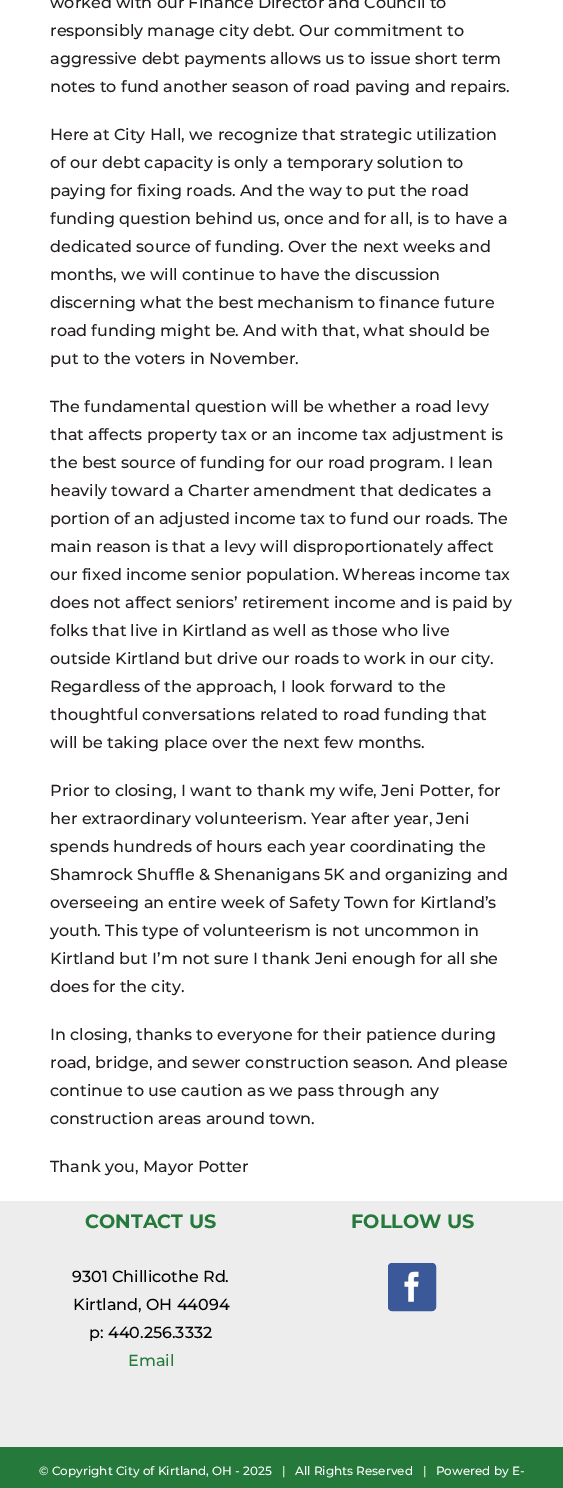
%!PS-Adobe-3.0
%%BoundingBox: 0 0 563 1488
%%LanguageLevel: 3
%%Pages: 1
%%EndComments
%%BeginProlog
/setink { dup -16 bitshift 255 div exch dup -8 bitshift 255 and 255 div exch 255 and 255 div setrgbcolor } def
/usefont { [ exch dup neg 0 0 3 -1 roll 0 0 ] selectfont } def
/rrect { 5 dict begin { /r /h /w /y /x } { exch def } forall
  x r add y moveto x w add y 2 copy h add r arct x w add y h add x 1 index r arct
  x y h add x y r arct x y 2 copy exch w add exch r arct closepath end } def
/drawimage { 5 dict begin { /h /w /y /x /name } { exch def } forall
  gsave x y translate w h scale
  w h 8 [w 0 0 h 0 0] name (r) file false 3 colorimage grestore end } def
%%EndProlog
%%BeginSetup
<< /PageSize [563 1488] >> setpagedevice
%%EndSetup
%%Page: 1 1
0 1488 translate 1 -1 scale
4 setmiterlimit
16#FFFFFF setink
0 0 563 1488 rectfill
/Montserrat-Medium 16 usefont
16#221D1F setink
[
    [(worked with our Finance Director and Council to) 50 8]
    [(responsibly manage city debt. Our commitment to) 50 36]
    [(aggressive debt payments allows us to issue short term) 50 64]
    [(notes to fund another season of road paving and repairs.) 50 92]
    [(Here at City Hall, we recognize that strategic utilization) 50 140]
    [(of our debt capacity is only a temporary solution to) 50 168]
    [(paying for fixing roads. And the way to put the road) 50 196]
    [(funding question behind us, once and for all, is to have a) 50 224]
    [(dedicated source of funding. Over the next weeks and) 50 252]
    [(months, we will continue to have the discussion) 50 280]
    [(discerning what the best mechanism to finance future) 50 308]
    [(road funding might be. And with that, what should be) 50 336]
    [(put to the voters in November.) 50 364]
    [(The fundamental question will be whether a road levy) 50 412]
    [(that affects property tax or an income tax adjustment is) 50 440]
    [(the best source of funding for our road program. I lean) 50 468]
    [(heavily toward a Charter amendment that dedicates a) 50 496]
    [(portion of an adjusted income tax to fund our roads. The) 50 524]
    [(main reason is that a levy will disproportionately affect) 50 552]
    [(our fixed income senior population. Whereas income tax) 50 580]
    [(does not affect seniors’ retirement income and is paid by) 50 608]
    [(folks that live in Kirtland as well as those who live) 50 636]
    [(outside Kirtland but drive our roads to work in our city.) 50 664]
    [(Regardless of the approach, I look forward to the) 50 692]
    [(thoughtful conversations related to road funding that) 50 720]
    [(will be taking place over the next few months.) 50 748]
    [(Prior to closing, I want to thank my wife, Jeni Potter, for) 50 796]
    [(her extraordinary volunteerism. Year after year, Jeni) 50 824]
    [(spends hundreds of hours each year coordinating the) 50 852]
    [(Shamrock Shuffle & Shenanigans 5K and organizing and) 50 880]
    [(overseeing an entire week of Safety Town for Kirtland’s) 50 908]
    [(youth. This type of volunteerism is not uncommon in) 50 936]
    [(Kirtland but I’m not sure I thank Jeni enough for all she) 50 964]
    [(does for the city.) 50 992]
    [(In closing, thanks to everyone for their patience during) 50 1040]
    [(road, bridge, and sewer construction season. And please) 50 1068]
    [(continue to use caution as we pass through any) 50 1096]
    [(construction areas around town.) 50 1124]
    [(Thank you, Mayor Potter) 50 1172]
] { aload pop moveto show } forall
16#EDEDED setink
0 1201 563 246 rectfill
/Montserrat-Bold 19.25 usefont
16#24793B setink
85 1228 moveto (CONTACT US) show
/Montserrat-Medium 16 usefont
16#000000 setink
[
    [(9301 Chillicothe Rd.) 72 1282]
    [(Kirtland, OH 44094) 73 1310]
    [(p: 440.256.3332) 89 1338]
] { aload pop moveto show } forall
16#24793B setink
128 1366 moveto (Email) show
/Montserrat-Bold 19.25 usefont
351 1228 moveto (FOLLOW US) show
16#3B5998 setink
388.5 1263.5 47 47 3.5 rrect gsave fill grestore
stroke
(img1.raw) 404 1271 15 31 drawimage
16#24793B setink
0 1447 563 41 rectfill
/Montserrat-Medium 12 usefont
16#FFFFFF setink
39 1475 moveto (© Copyright City of Kirtland, OH - 2025   |   All Rights Reserved   |   Powered by E-) show
showpage
%%EOF
